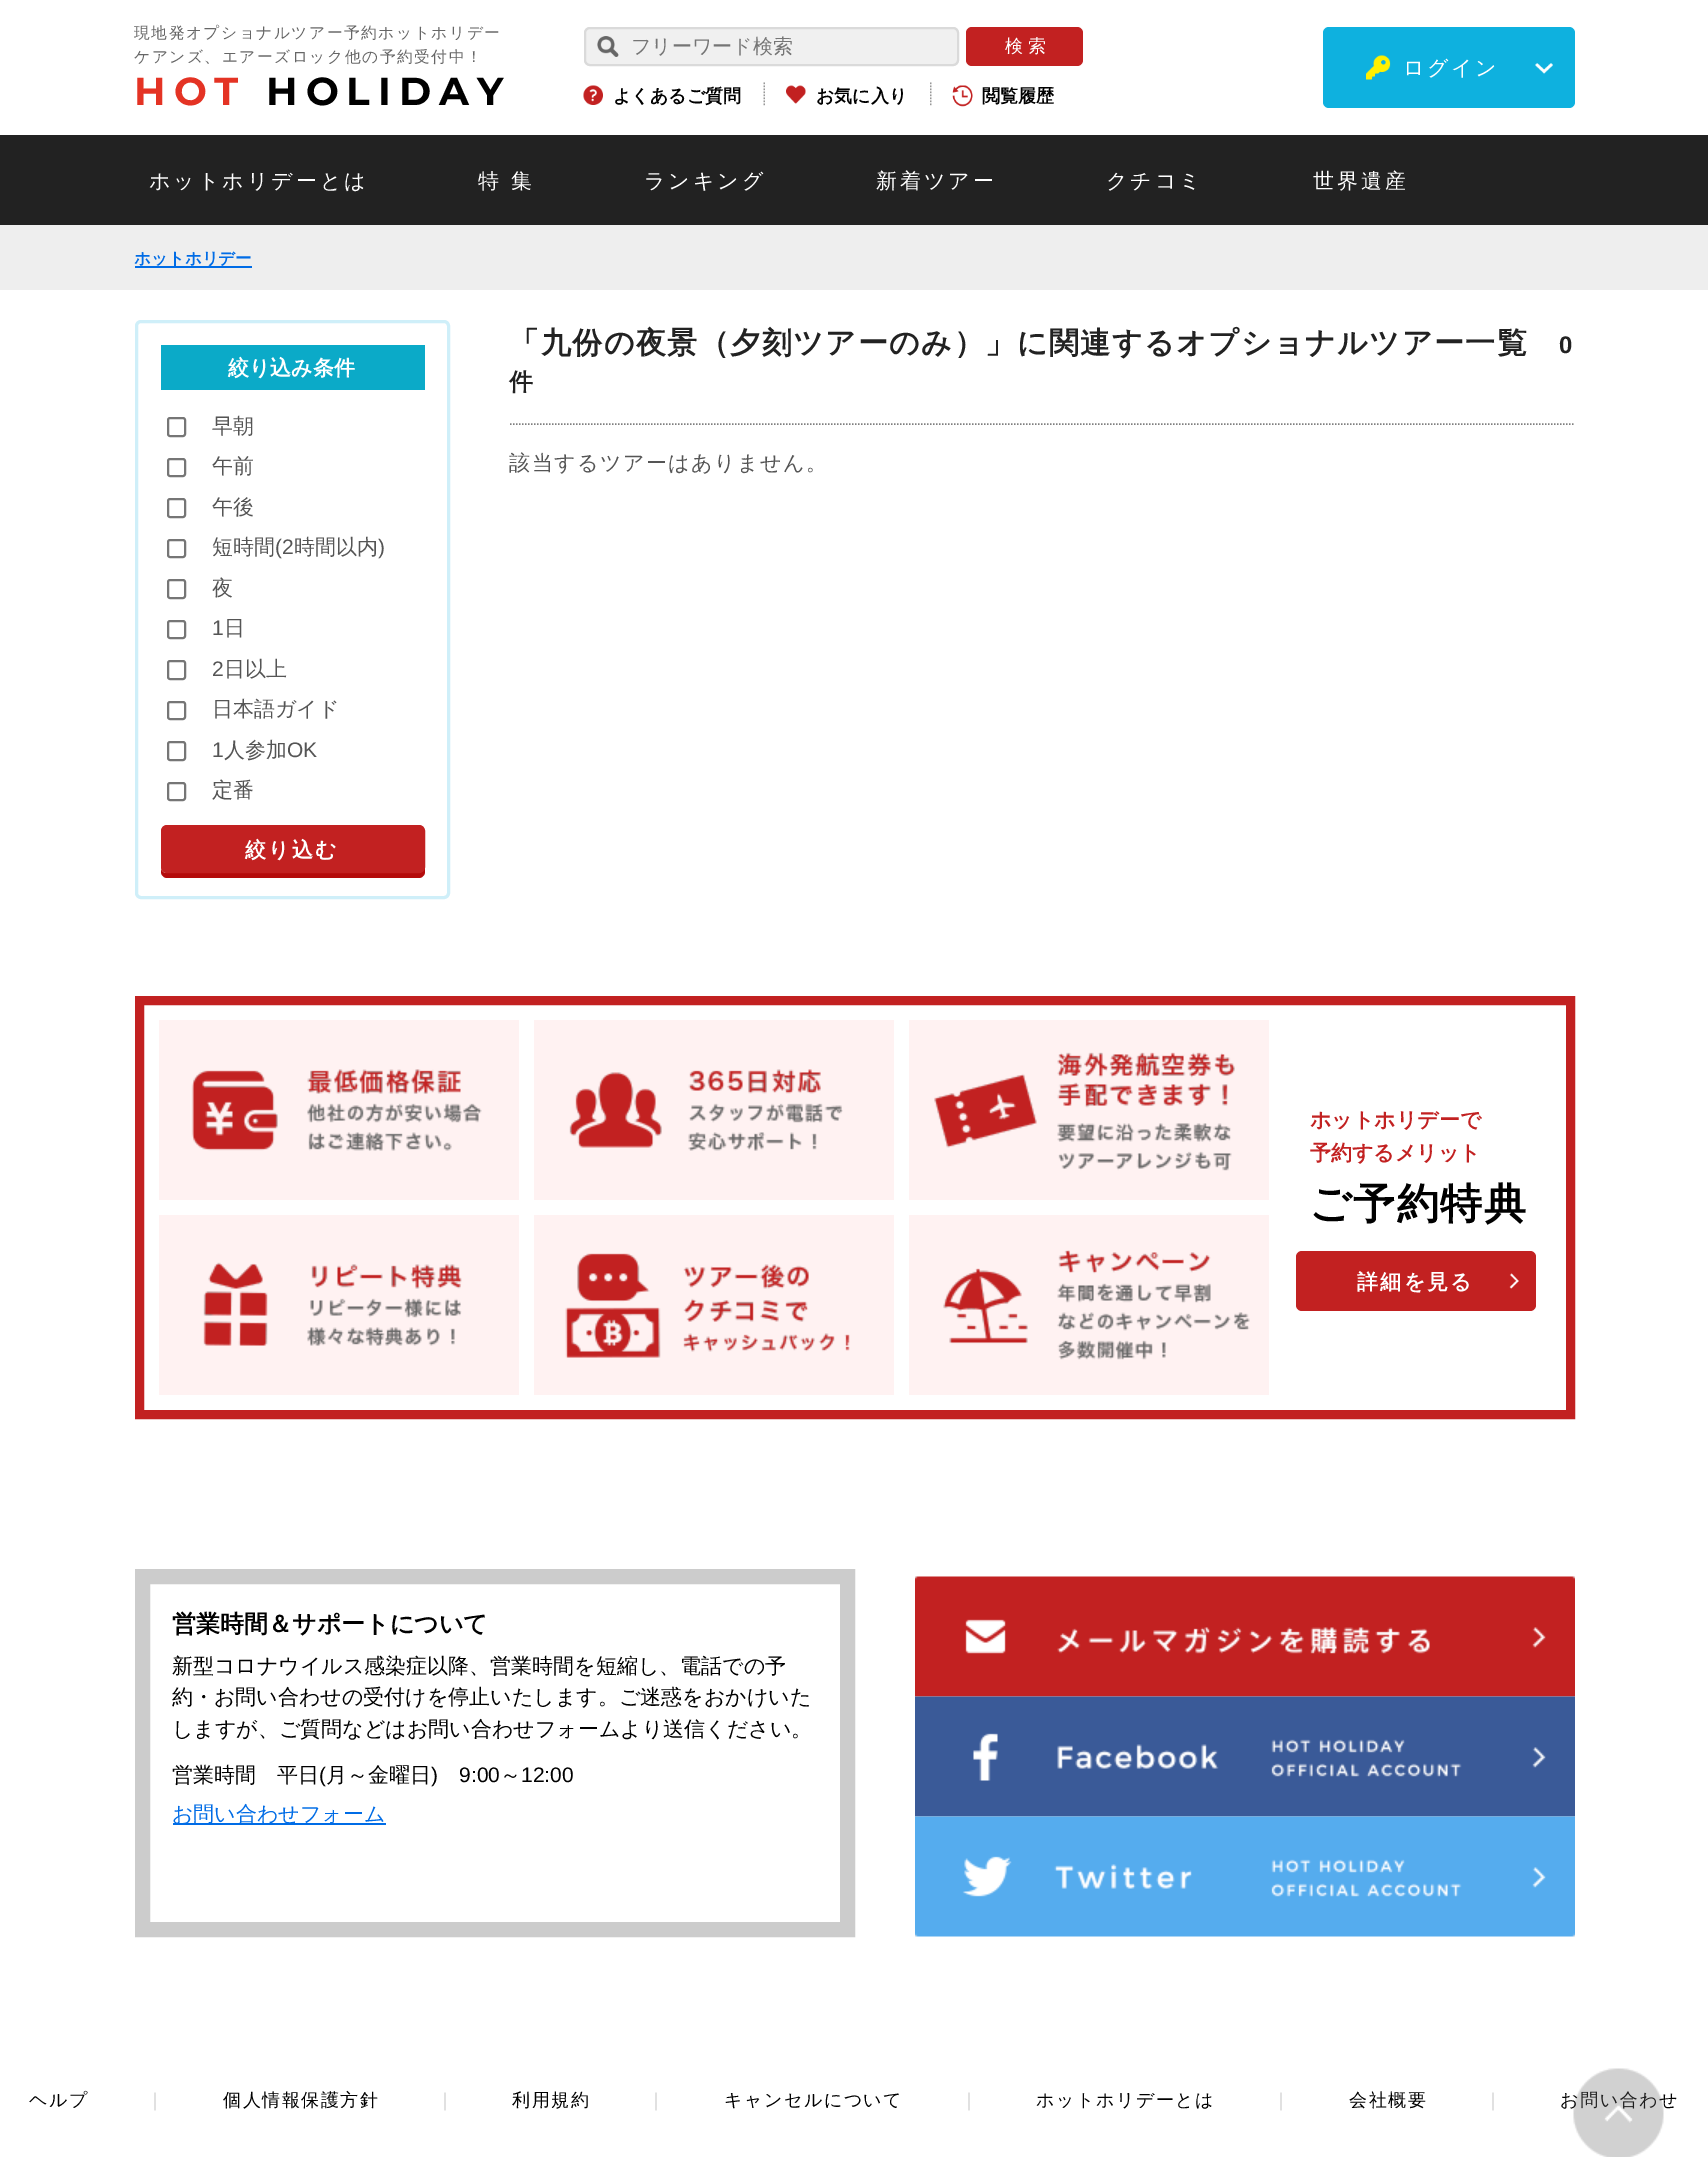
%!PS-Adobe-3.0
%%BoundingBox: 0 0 1708 2157
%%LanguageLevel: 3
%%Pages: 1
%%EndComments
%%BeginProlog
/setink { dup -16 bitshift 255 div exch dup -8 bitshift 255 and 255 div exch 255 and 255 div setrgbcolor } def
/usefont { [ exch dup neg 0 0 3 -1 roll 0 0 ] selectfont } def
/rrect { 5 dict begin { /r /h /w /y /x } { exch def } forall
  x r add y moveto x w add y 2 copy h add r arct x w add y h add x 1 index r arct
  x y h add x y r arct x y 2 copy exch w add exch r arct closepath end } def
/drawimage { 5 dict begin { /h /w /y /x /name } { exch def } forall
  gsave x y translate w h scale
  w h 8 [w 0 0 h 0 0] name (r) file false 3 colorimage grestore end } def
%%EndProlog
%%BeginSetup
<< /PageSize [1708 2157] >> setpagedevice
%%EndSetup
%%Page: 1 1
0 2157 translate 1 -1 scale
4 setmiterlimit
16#FFFFFF setink
0 0 1708 2157 rectfill
/WenQuanYiZenHei-Medium 15.75 usefont
16#666666 setink
134 38 moveto 1.5 0 (現地発オプショナルツアー予約ホットホリデー) ashow
134 62 moveto 1.5 0 (ケアンズ、エアーズロック他の予約受付中！) ashow
/Montserrat-Bold 39 usefont
16#E43324 setink
134 105 moveto 8 0 (HOT) ashow
16#000000 setink
266 105 moveto 8 0 (HOLIDAY) ashow
16#F0F0F0 setink
584 27 375 39 6 rrect fill
(img1.raw) 597 36 22 21 drawimage
16#DADADA setink
2 setlinewidth
585 28 373 37 5 rrect stroke
/WenQuanYiZenHei-Medium 20 usefont
16#757575 setink
631 53 moveto (フリーワード検索) show
16#C22121 setink
966 27 117 39 6 rrect fill
/WenQuanYiZenHei-Medium 18 usefont
16#FFFFFF setink
1005 52 moveto (検 索) show
(img2.raw) 763 82 2 24 drawimage
(img3.raw) 583 85 20 20 drawimage
/WenQuanYiZenHei-Bold 18 usefont
16#000000 setink
613 102 moveto (よくあるご質問) show
(img4.raw) 930 82 2 24 drawimage
(img5.raw) 786 85 20 19 drawimage
816 102 moveto (お気に入り) show
(img6.raw) 952 85 21 22 drawimage
982 102 moveto (閲覧履歴) show
16#0EB1DF setink
1323 27 252 81 6 rrect fill
(img7.raw) 1366 55 187 25 drawimage
/WenQuanYiZenHei-Medium 21 usefont
16#FFFFFF setink
1403 75 moveto 2.5 0 (ログイン) ashow
16#222222 setink
0 135 1708 90 rectfill
16#FFFFFF setink
149 188 moveto 3 0 (ホットホリデーとは) ashow
478 188 moveto 3 0 (特 集) ashow
644 188 moveto 3 0 (ランキング) ashow
876 188 moveto 3 0 (新着ツアー) ashow
1106 188 moveto 3 0 (クチコミ) ashow
1313 188 moveto 3 0 (世界遺産) ashow
16#EEEEEE setink
0 225 1708 65 rectfill
16#006CE6 setink
135 266 117 2 rectfill
/WenQuanYiZenHei-Bold 16.5 usefont
134 264 moveto (ホットホリデー) show
16#CFEFF9 setink
3 setlinewidth
136.5 321.5 312 576 4.5 rrect stroke
16#0BAAC8 setink
161 345 264 45 rectfill
/WenQuanYiZenHei-Bold 21 usefont
16#FFFFFF setink
228 375 moveto (絞り込み条件) show
16#767676 setink
2 setlinewidth
168 418 17 18 2 rrect stroke
/WenQuanYiZenHei-Medium 21 usefont
16#555555 setink
212 433 moveto (早朝) show
16#767676 setink
168 459 17 17 2 rrect stroke
16#555555 setink
212 473 moveto (午前) show
16#767676 setink
168 499 17 18 2 rrect stroke
16#555555 setink
212 514 moveto (午後) show
16#767676 setink
168 540 17 17 2 rrect stroke
16#555555 setink
212 554 moveto (短時間) show
/LiberationSans-Regular 21 usefont
275 554 moveto (\(2) show
/WenQuanYiZenHei-Medium 21 usefont
294 554 moveto (時間以内) show
/LiberationSans-Regular 21 usefont
378 554 moveto (\)) show
16#767676 setink
168 580 17 18 2 rrect stroke
/WenQuanYiZenHei-Medium 21 usefont
16#555555 setink
212 595 moveto (夜) show
16#767676 setink
168 621 17 17 2 rrect stroke
/LiberationSans-Regular 21 usefont
16#555555 setink
212 635 moveto (1) show
/WenQuanYiZenHei-Medium 21 usefont
224 635 moveto (日) show
16#767676 setink
168 661 17 18 2 rrect stroke
/LiberationSans-Regular 21 usefont
16#555555 setink
212 676 moveto (2) show
/WenQuanYiZenHei-Medium 21 usefont
224 676 moveto (日以上) show
16#767676 setink
168 702 17 17 2 rrect stroke
16#555555 setink
212 716 moveto (日本語ガイド) show
16#767676 setink
168 742 17 18 2 rrect stroke
/LiberationSans-Regular 21 usefont
16#555555 setink
212 757 moveto (1) show
/WenQuanYiZenHei-Medium 21 usefont
224 757 moveto (人参加) show
/LiberationSans-Regular 21 usefont
287 757 moveto (OK) show
16#767676 setink
168 783 17 17 2 rrect stroke
/WenQuanYiZenHei-Medium 21 usefont
16#555555 setink
212 797 moveto (定番) show
16#B40B0B setink
161 869 moveto 161 872 lineto 161 875 164 878 167 878 curveto 419 878 lineto 422 878 425 875 425 872 curveto 425 836 lineto 424 834 lineto 424 867 lineto 424 870 422 873 418 873 curveto 166 873 lineto 164 873 162 872 161 869 curveto closepath fill
16#C22121 setink
162.5 826.5 261 45 4.5 rrect gsave fill grestore
3 setlinewidth
stroke
/WenQuanYiZenHei-Bold 21 usefont
16#FFFFFF setink
245 857 moveto 2.25 0 (絞り込む) ashow
/WenQuanYiZenHei-Bold 30 usefont
16#222222 setink
509 353 moveto 1.5 0 (「九份の夜景（夕刻ツアーのみ）」に関連するオプショナルツアー一覧) ashow
/LiberationSans-Bold 24 usefont
1559 353 moveto 1.5 0 (0) ashow
/WenQuanYiZenHei-Bold 24 usefont
509 390 moveto 1.5 0 (件) ashow
16#7F7F7F setink
1.5 setlinewidth
[1.5 1.5] 0 setdash
510 424 moveto 1575 424 lineto stroke
/WenQuanYiZenHei-Medium 21 usefont
16#555555 setink
509 470 moveto 1.5 0 (該当するツアーはありません。) ashow
16#C22121 setink
9 setlinewidth
[] 0 setdash
139.5 1000.5 1431 414 rectstroke
16#FFF2F2 setink
159 1020 360 180 rectfill
(img8.raw) 191 1069 291 82 drawimage
534 1020 360 180 rectfill
(img9.raw) 569 1069 274 82 drawimage
909 1020 360 180 rectfill
(img10.raw) 934 1052 301 119 drawimage
159 1215 360 180 rectfill
(img11.raw) 203 1262 259 84 drawimage
534 1215 360 180 rectfill
(img12.raw) 565 1253 285 105 drawimage
909 1215 360 180 rectfill
(img13.raw) 943 1250 307 110 drawimage
/WenQuanYiZenHei-Bold 21 usefont
16#C22121 setink
1310 1127 moveto (ホットホリデーで) show
1310 1160 moveto (予約するメリット) show
/WenQuanYiZenHei-Bold 42 usefont
16#000000 setink
1309 1218 moveto 1.5 0 (ご予約特典) ashow
16#C22121 setink
1296 1251 240 60 6 rrect fill
(img14.raw) 1509 1273 10 16 drawimage
/WenQuanYiZenHei-Bold 21 usefont
16#FFFFFF setink
1357 1289 moveto 2.25 0 (詳細を見る) ashow
16#CCCCCC setink
15 setlinewidth
142.5 1576.5 705 353 rectstroke
/WenQuanYiZenHei-Bold 24 usefont
16#000000 setink
172 1632 moveto (営業時間＆サポートについて) show
/WenQuanYiZenHei-Medium 21 usefont
[
    [(新型コロナウイルス感染症以降、営業時間を短縮し、電話での予) 172 1673]
    [(約・お問い合わせの受付けを停止いたします。ご迷惑をおかけいた) 172 1704]
    [(しますが、ご質問などはお問い合わせフォームより送信ください。) 172 1736]
    [(営業時間　平日) 172 1782]
] { aload pop moveto show } forall
/LiberationSans-Regular 21 usefont
319 1782 moveto (\() show
/WenQuanYiZenHei-Medium 21 usefont
326 1782 moveto (月～金曜日) show
/LiberationSans-Regular 21 usefont
431 1782 moveto (\)) show
459 1782 moveto (9:00) show
/WenQuanYiZenHei-Medium 21 usefont
500 1782 moveto (～) show
/LiberationSans-Regular 21 usefont
521 1782 moveto (12:00) show
16#006CE6 setink
173 1823 213 2 rectfill
/WenQuanYiZenHei-Medium 21 usefont
172 1821 moveto (お問い合わせフォーム) show
(img15.raw) 915 1576 660 121 drawimage
(img16.raw) 915 1696 660 121 drawimage
(img17.raw) 915 1816 660 121 drawimage
/WenQuanYiZenHei-Medium 18 usefont
16#000000 setink
1560 2106 moveto 1.5 0 (お問い合わせ) ashow
(img18.raw) 1573 2068 91 89 drawimage
29 2106 moveto 1.5 0 (ヘルプ) ashow
16#C7C7C7 setink
146 2106 moveto 1.5 0 (｜) ashow
16#000000 setink
223 2106 moveto 1.5 0 (個人情報保護方針) ashow
16#C7C7C7 setink
436 2106 moveto 1.5 0 (｜) ashow
16#000000 setink
512 2106 moveto 1.5 0 (利用規約) ashow
16#C7C7C7 setink
647 2106 moveto 1.5 0 (｜) ashow
16#000000 setink
724 2106 moveto 1.5 0 (キャンセルについて) ashow
16#C7C7C7 setink
960 2106 moveto 1.5 0 (｜) ashow
16#000000 setink
1036 2106 moveto 1.5 0 (ホットホリデーとは) ashow
16#C7C7C7 setink
1272 2106 moveto 1.5 0 (｜) ashow
16#000000 setink
1349 2106 moveto 1.5 0 (会社概要) ashow
16#C7C7C7 setink
1484 2106 moveto 1.5 0 (｜) ashow
showpage
%%EOF
